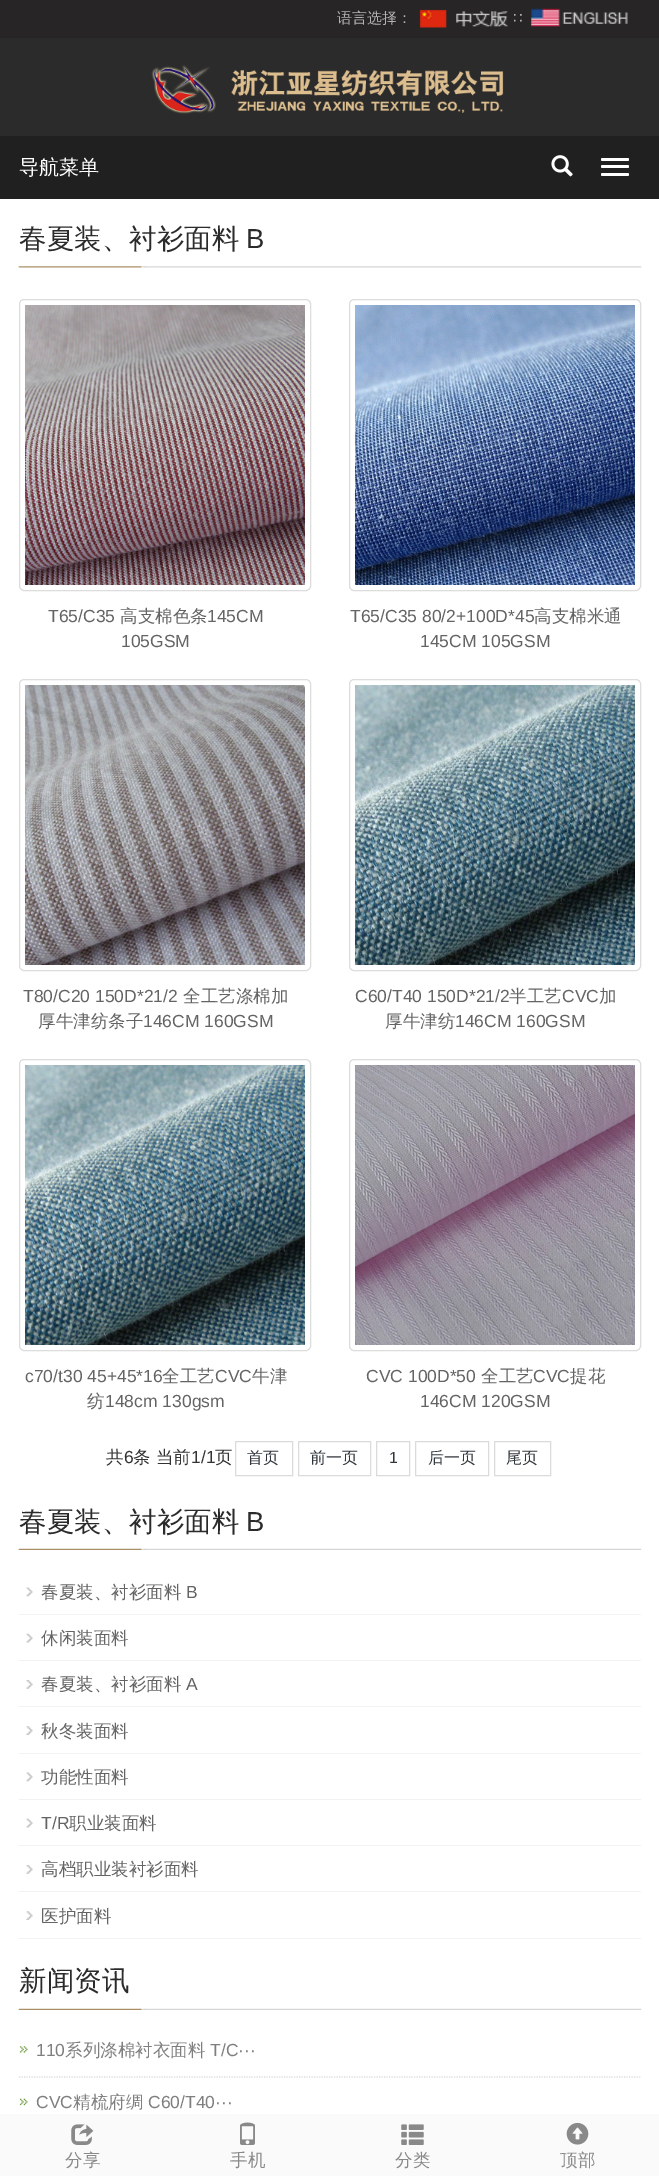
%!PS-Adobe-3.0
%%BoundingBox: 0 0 659 2176
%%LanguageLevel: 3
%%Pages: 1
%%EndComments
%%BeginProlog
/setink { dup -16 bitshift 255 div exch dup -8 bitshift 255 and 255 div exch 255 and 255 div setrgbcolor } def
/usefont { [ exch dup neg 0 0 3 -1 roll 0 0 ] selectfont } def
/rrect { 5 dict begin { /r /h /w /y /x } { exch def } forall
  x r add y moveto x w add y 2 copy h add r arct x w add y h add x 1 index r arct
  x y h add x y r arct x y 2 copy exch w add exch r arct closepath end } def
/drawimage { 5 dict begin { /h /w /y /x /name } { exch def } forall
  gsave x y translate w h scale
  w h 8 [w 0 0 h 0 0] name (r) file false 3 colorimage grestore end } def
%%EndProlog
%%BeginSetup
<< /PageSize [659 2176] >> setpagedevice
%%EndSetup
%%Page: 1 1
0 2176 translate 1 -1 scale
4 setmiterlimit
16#FFFFFF setink
0 0 659 2176 rectfill
16#2C2B2B setink
0 38 659 98 rectfill
16#272526 setink
0 0 659 38 rectfill
/WenQuanYiZenHei-Medium 15 usefont
16#B3B3B3 setink
337 23 moveto (语言选择：) show
(img1.raw) 419 9 89 19 drawimage
/DejaVuSans-Regular 15 usefont
513 23 moveto (∷) show
(img2.raw) 531 8 97 19 drawimage
(img3.raw) 151 65 353 49 drawimage
16#202020 setink
0 136 659 63 rectfill
/WenQuanYiZenHei-Medium 20 usefont
16#FFFFFF setink
19 174 moveto (导航菜单) show
(img4.raw) 551 155 22 22 drawimage
601 158 28 3 1.5 rrect fill
601 165 28 3 1.5 rrect fill
601 173 28 3 1.5 rrect fill
(img5.raw) 18 266 624 2 drawimage
/WenQuanYiZenHei-Medium 27.5 usefont
16#2C2B2B setink
19 248 moveto (春夏装、衬衫面料) show
/LiberationSans-Regular 27.5 usefont
246 248 moveto (B) show
16#DDDDDD setink
19.5 299.5 291 291 4.5 rrect stroke
(img6.raw) 25 305 280 280 drawimage
/LiberationSans-Regular 17.5 usefont
16#656464 setink
48 622 moveto (T65/C35) show
/WenQuanYiZenHei-Medium 17.5 usefont
120 622 moveto (高支棉色条) show
/LiberationSans-Regular 17.5 usefont
207 622 moveto (145CM) show
121 647 moveto (105GSM) show
16#DDDDDD setink
349.5 299.5 291 291 4.5 rrect stroke
(img7.raw) 355 305 280 280 drawimage
16#656464 setink
350 622 moveto (T65/C35 80/2+100D*45) show
/WenQuanYiZenHei-Medium 17.5 usefont
534 622 moveto (高支棉米通) show
/LiberationSans-Regular 17.5 usefont
420 647 moveto (145CM 105GSM) show
16#DDDDDD setink
19.5 679.5 291 291 4.5 rrect stroke
(img8.raw) 25 685 280 280 drawimage
16#656464 setink
23 1002 moveto (T80/C20 150D*21/2) show
/WenQuanYiZenHei-Medium 17.5 usefont
183 1002 moveto (全工艺涤棉加) show
38 1027 moveto (厚牛津纺条子) show
/LiberationSans-Regular 17.5 usefont
143 1027 moveto (146CM 160GSM) show
16#DDDDDD setink
349.5 679.5 291 291 4.5 rrect stroke
(img9.raw) 355 685 280 280 drawimage
16#656464 setink
355 1002 moveto (C60/T40 150D*21/2) show
/WenQuanYiZenHei-Medium 17.5 usefont
509 1002 moveto (半工艺) show
/LiberationSans-Regular 17.5 usefont
562 1002 moveto (CVC) show
/WenQuanYiZenHei-Medium 17.5 usefont
599 1002 moveto (加) show
385 1027 moveto (厚牛津纺) show
/LiberationSans-Regular 17.5 usefont
455 1027 moveto (146CM 160GSM) show
16#DDDDDD setink
19.5 1059.5 291 291 4.5 rrect stroke
(img10.raw) 25 1065 280 280 drawimage
16#656464 setink
25 1382 moveto (c70/t30 45+45*16) show
/WenQuanYiZenHei-Medium 17.5 usefont
162 1382 moveto (全工艺) show
/LiberationSans-Regular 17.5 usefont
215 1382 moveto (CVC) show
/WenQuanYiZenHei-Medium 17.5 usefont
252 1382 moveto (牛津) show
87 1407 moveto (纺) show
/LiberationSans-Regular 17.5 usefont
105 1407 moveto (148cm 130gsm) show
16#DDDDDD setink
349.5 1059.5 291 291 4.5 rrect stroke
(img11.raw) 355 1065 280 280 drawimage
16#656464 setink
366 1382 moveto (CVC 100D*50) show
/WenQuanYiZenHei-Medium 17.5 usefont
481 1382 moveto (全工艺) show
/LiberationSans-Regular 17.5 usefont
533 1382 moveto (CVC) show
/WenQuanYiZenHei-Medium 17.5 usefont
570 1382 moveto (提花) show
/LiberationSans-Regular 17.5 usefont
420 1407 moveto (146CM 120GSM) show
/WenQuanYiZenHei-Medium 17.5 usefont
16#333333 setink
106 1463 moveto (共) show
/LiberationSans-Regular 17.5 usefont
124 1463 moveto (6) show
/WenQuanYiZenHei-Medium 17.5 usefont
133 1463 moveto (条 当前) show
/LiberationSans-Regular 17.5 usefont
191 1463 moveto (1/1) show
/WenQuanYiZenHei-Medium 17.5 usefont
215 1463 moveto (页) show
16#DBDBDB setink
235.5 1441.5 57 34 rectstroke
/WenQuanYiZenHei-Medium 16 usefont
16#31363C setink
247 1463 moveto (首页) show
16#DBDBDB setink
298.5 1441.5 72 34 rectstroke
16#31363C setink
310 1463 moveto (前一页) show
16#DBDBDB setink
376.5 1441.5 33 34 rectstroke
/LiberationSans-Regular 16 usefont
16#31363C setink
389 1463 moveto (1) show
16#DBDBDB setink
415.5 1441.5 73 34 rectstroke
/WenQuanYiZenHei-Medium 16 usefont
16#31363C setink
428 1463 moveto (后一页) show
16#DBDBDB setink
494.5 1441.5 56 34 rectstroke
16#31363C setink
506 1463 moveto (尾页) show
(img12.raw) 18 1548 624 2 drawimage
/WenQuanYiZenHei-Medium 27.5 usefont
16#2C2B2B setink
19 1531 moveto (春夏装、衬衫面料) show
/LiberationSans-Regular 27.5 usefont
246 1531 moveto (B) show
(img13.raw) 26 1587 7 10 drawimage
16#F2F2F2 setink
19 1614 622 1 rectfill
/WenQuanYiZenHei-Medium 17.5 usefont
16#656464 setink
41 1598 moveto (春夏装、衬衫面料) show
/LiberationSans-Regular 17.5 usefont
186 1598 moveto (B) show
(img14.raw) 26 1633 7 10 drawimage
16#F2F2F2 setink
19 1660 622 1 rectfill
/WenQuanYiZenHei-Medium 17.5 usefont
16#656464 setink
41 1644 moveto (休闲装面料) show
(img15.raw) 26 1680 7 9 drawimage
16#F2F2F2 setink
19 1706 622 1 rectfill
16#656464 setink
41 1690 moveto (春夏装、衬衫面料) show
/LiberationSans-Regular 17.5 usefont
186 1690 moveto (A) show
(img16.raw) 26 1726 7 9 drawimage
16#F2F2F2 setink
19 1753 622 1 rectfill
/WenQuanYiZenHei-Medium 17.5 usefont
16#656464 setink
41 1737 moveto (秋冬装面料) show
(img13.raw) 26 1772 7 10 drawimage
16#F2F2F2 setink
19 1799 622 1 rectfill
16#656464 setink
41 1783 moveto (功能性面料) show
(img14.raw) 26 1818 7 10 drawimage
16#F2F2F2 setink
19 1845 622 1 rectfill
/LiberationSans-Regular 17.5 usefont
16#656464 setink
41 1829 moveto (T/R) show
/WenQuanYiZenHei-Medium 17.5 usefont
69 1829 moveto (职业装面料) show
(img15.raw) 26 1865 7 9 drawimage
16#F2F2F2 setink
19 1891 622 1 rectfill
16#656464 setink
41 1875 moveto (高档职业装衬衫面料) show
(img16.raw) 26 1911 7 9 drawimage
16#F2F2F2 setink
19 1938 622 1 rectfill
16#656464 setink
41 1922 moveto (医护面料) show
(img12.raw) 18 2008 624 2 drawimage
/WenQuanYiZenHei-Medium 27.5 usefont
16#2C2B2B setink
19 1990 moveto (新闻资讯) show
(img17.raw) 19 2046 9 7 drawimage
16#DDDDDD setink
1.2 setlinewidth
[1.25 1.25] 0 setdash
19 2077 moveto 641 2077 lineto stroke
/LiberationSans-Regular 17.5 usefont
16#7F7F80 setink
36 2056 moveto (110) show
/WenQuanYiZenHei-Medium 17.5 usefont
65 2056 moveto (系列涤棉衬衣面料) show
/LiberationSans-Regular 17.5 usefont
210 2056 moveto (T/C···) show
(img18.raw) 19 2098 9 8 drawimage
36 2108 moveto (CVC) show
/WenQuanYiZenHei-Medium 17.5 usefont
73 2108 moveto (精梳府绸) show
/LiberationSans-Regular 17.5 usefont
148 2108 moveto (C60/T40···) show
16#FAFAFA setink
0 2114 659 62 rectfill
(img19.raw) 71 2124 23 21 drawimage
/WenQuanYiZenHei-Medium 17.5 usefont
16#898989 setink
65 2166 moveto (分享) show
(img20.raw) 240 2122 15 23 drawimage
230 2166 moveto (手机) show
(img21.raw) 401 2124 23 21 drawimage
395 2166 moveto (分类) show
(img22.raw) 566 2122 23 23 drawimage
560 2166 moveto (顶部) show
showpage
%%EOF
